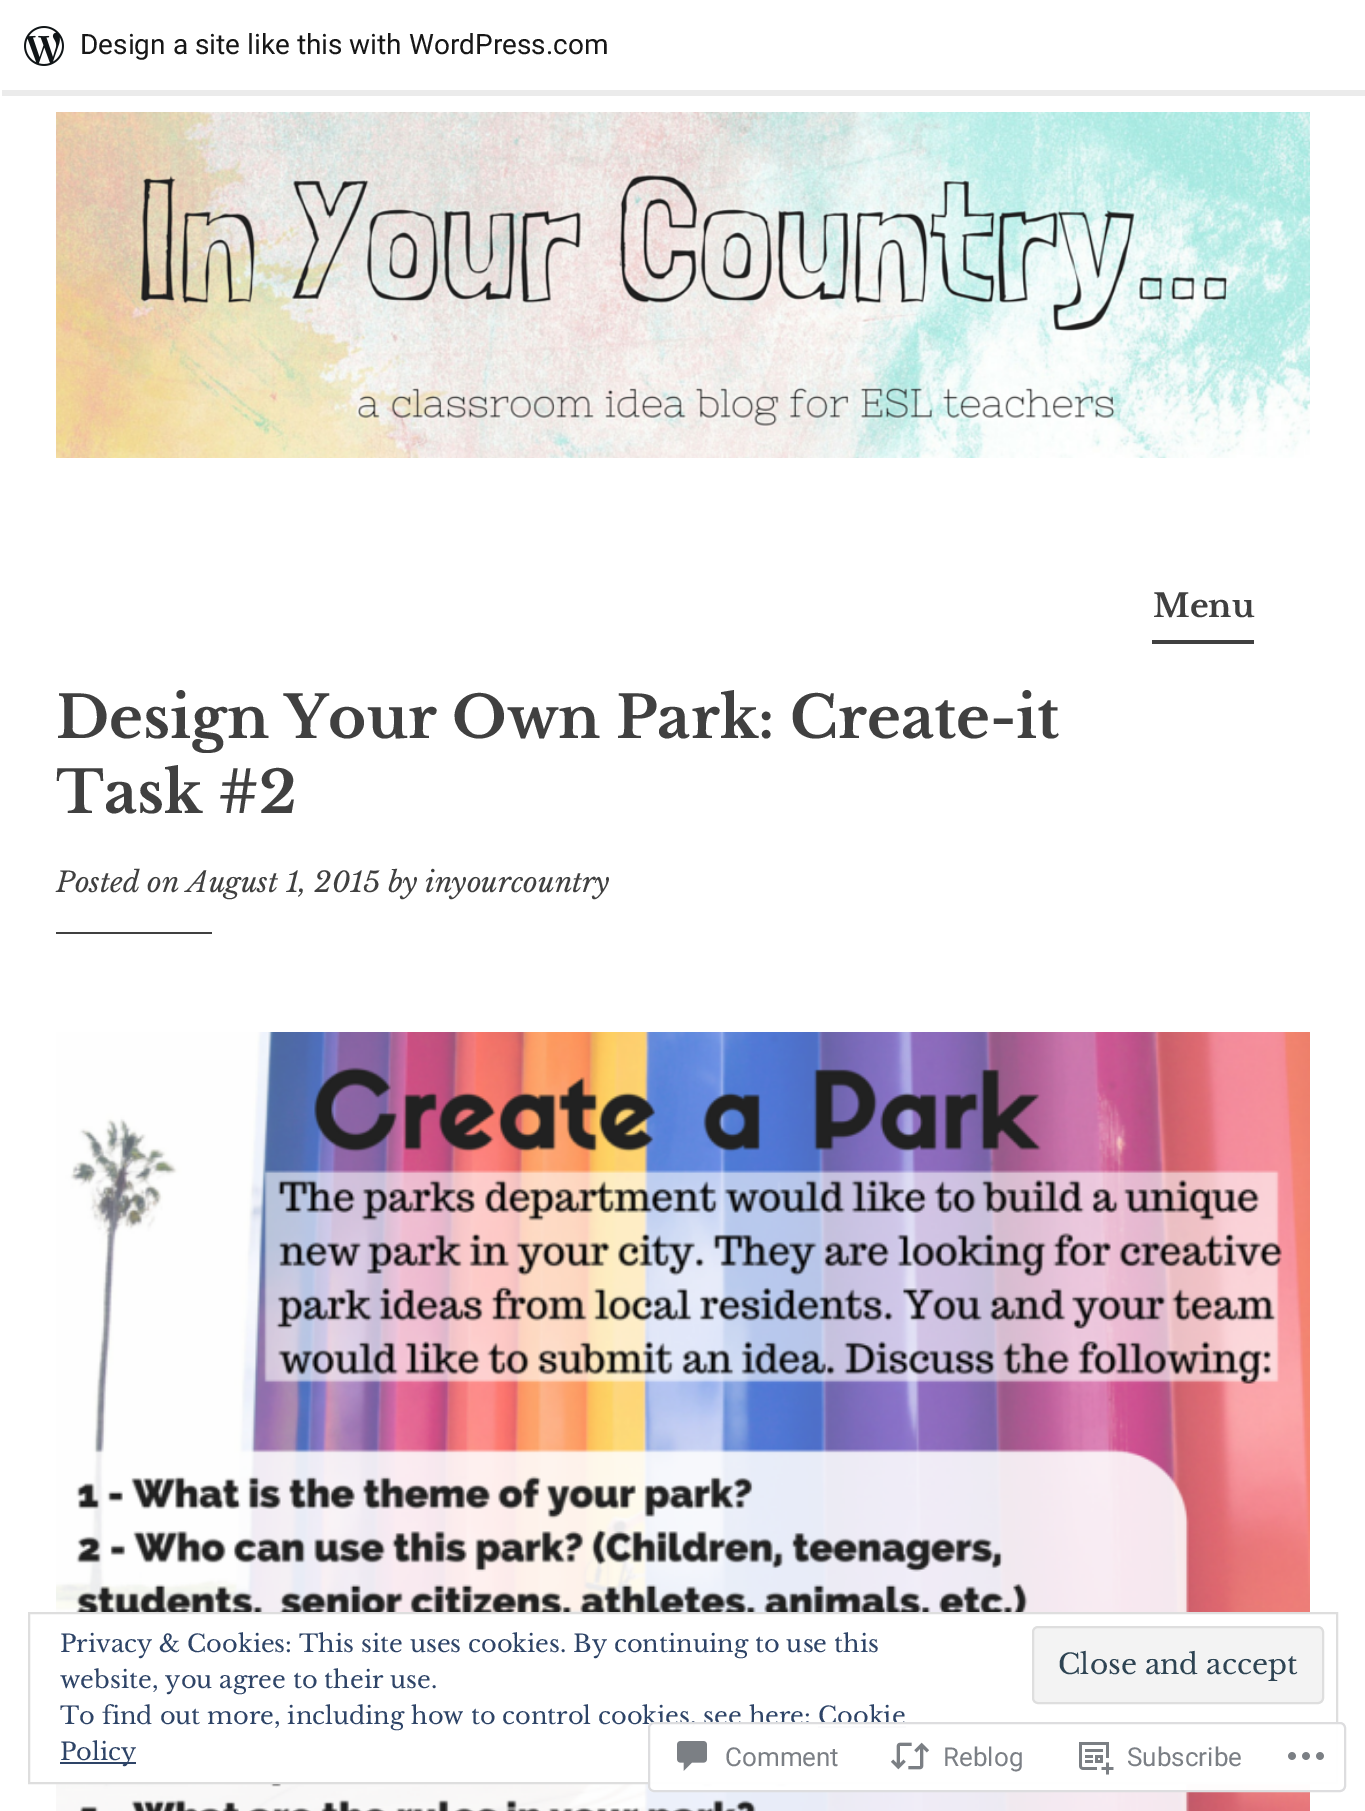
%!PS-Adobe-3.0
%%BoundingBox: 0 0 1365 1811
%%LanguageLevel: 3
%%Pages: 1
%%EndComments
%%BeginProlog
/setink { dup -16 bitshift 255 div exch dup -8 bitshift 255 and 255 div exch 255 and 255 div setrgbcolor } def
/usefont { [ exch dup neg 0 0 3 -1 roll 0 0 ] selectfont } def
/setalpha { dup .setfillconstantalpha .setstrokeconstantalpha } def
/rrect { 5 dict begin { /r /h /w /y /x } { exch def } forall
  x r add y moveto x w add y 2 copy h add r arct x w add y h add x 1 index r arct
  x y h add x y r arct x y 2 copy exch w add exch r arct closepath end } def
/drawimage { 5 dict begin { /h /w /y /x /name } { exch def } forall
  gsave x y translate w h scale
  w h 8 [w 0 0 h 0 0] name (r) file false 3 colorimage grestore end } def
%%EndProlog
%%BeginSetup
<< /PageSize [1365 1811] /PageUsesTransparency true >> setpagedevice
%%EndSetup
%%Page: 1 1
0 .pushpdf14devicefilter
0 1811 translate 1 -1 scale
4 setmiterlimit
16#FFFFFF setink
0 0 1365 1811 rectfill
0.08 setalpha
16#000000 setink
2 90 moveto 2 96 lineto 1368 96 lineto 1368 6 lineto 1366 6 lineto 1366 90 lineto closepath fill
1 setalpha
(img1.raw) 24 26 40 40 drawimage
/Roboto-Regular 28 usefont
16#171717 setink
80 54 moveto (Design a site like this with WordPress.com) show
(img2.raw) 56 112 1254 346 drawimage
16#404040 setink
1152 640 102 4 rectfill
/LibreBaskerville-Bold 32 usefont
1153 617 moveto (Menu) show
/LibreBaskerville-Bold 58 usefont
56 738 moveto (Design Your Own Park: Create-it) show
56 813 moveto (Task #2) show
/LibreBaskerville-Italic 28 usefont
56 892 moveto (Posted on August 1, 2015 by inyourcountry) show
56 932 156 2 rectfill
(img3.raw) 56 1032 1254 779 drawimage
16#FFFFFF setink
56 1614 1254 168 rectfill
16#DEDEDE setink
2 setlinewidth
29 1613 1308 170 rectstroke
/LibreBaskerville-Regular 24 usefont
16#2E4467 setink
60 1652 moveto (Privacy & Cookies: This site uses cookies. By continuing to use this) show
60 1688 moveto (website, you agree to their use.) show
16#F3F3F3 setink
1033 1627 290 76 5 rrect gsave fill grestore
16#DEDEDE setink
stroke
/LibreBaskerville-Regular 28 usefont
16#2E4453 setink
1058 1674 moveto (Close and accept) show
/LibreBaskerville-Regular 24 usefont
16#2E4467 setink
60 1724 moveto (To find out more, including how to control cookies, see here: Cookie) show
60 1762 76 2 rectfill
60 1760 moveto (Policy) show
818 1726 88 2 rectfill
0.98 setalpha
16#FFFFFF setink
648 1722 698 70 6 rrect fill
16#DCDCDE setink
649 1723 696 68 5 rrect stroke
1 setalpha
(img4.raw) 677 1741 30 30 drawimage
/Roboto-Regular 26 usefont
16#7B7F85 setink
725 1766 moveto (Comment) show
(img5.raw) 890 1742 40 28 drawimage
943 1766 moveto (Reblog) show
(img6.raw) 1079 1742 35 33 drawimage
1127 1766 moveto (Subscribe) show
(img7.raw) 1288 1752 36 8 drawimage
.poppdf14devicefilter showpage
%%EOF
